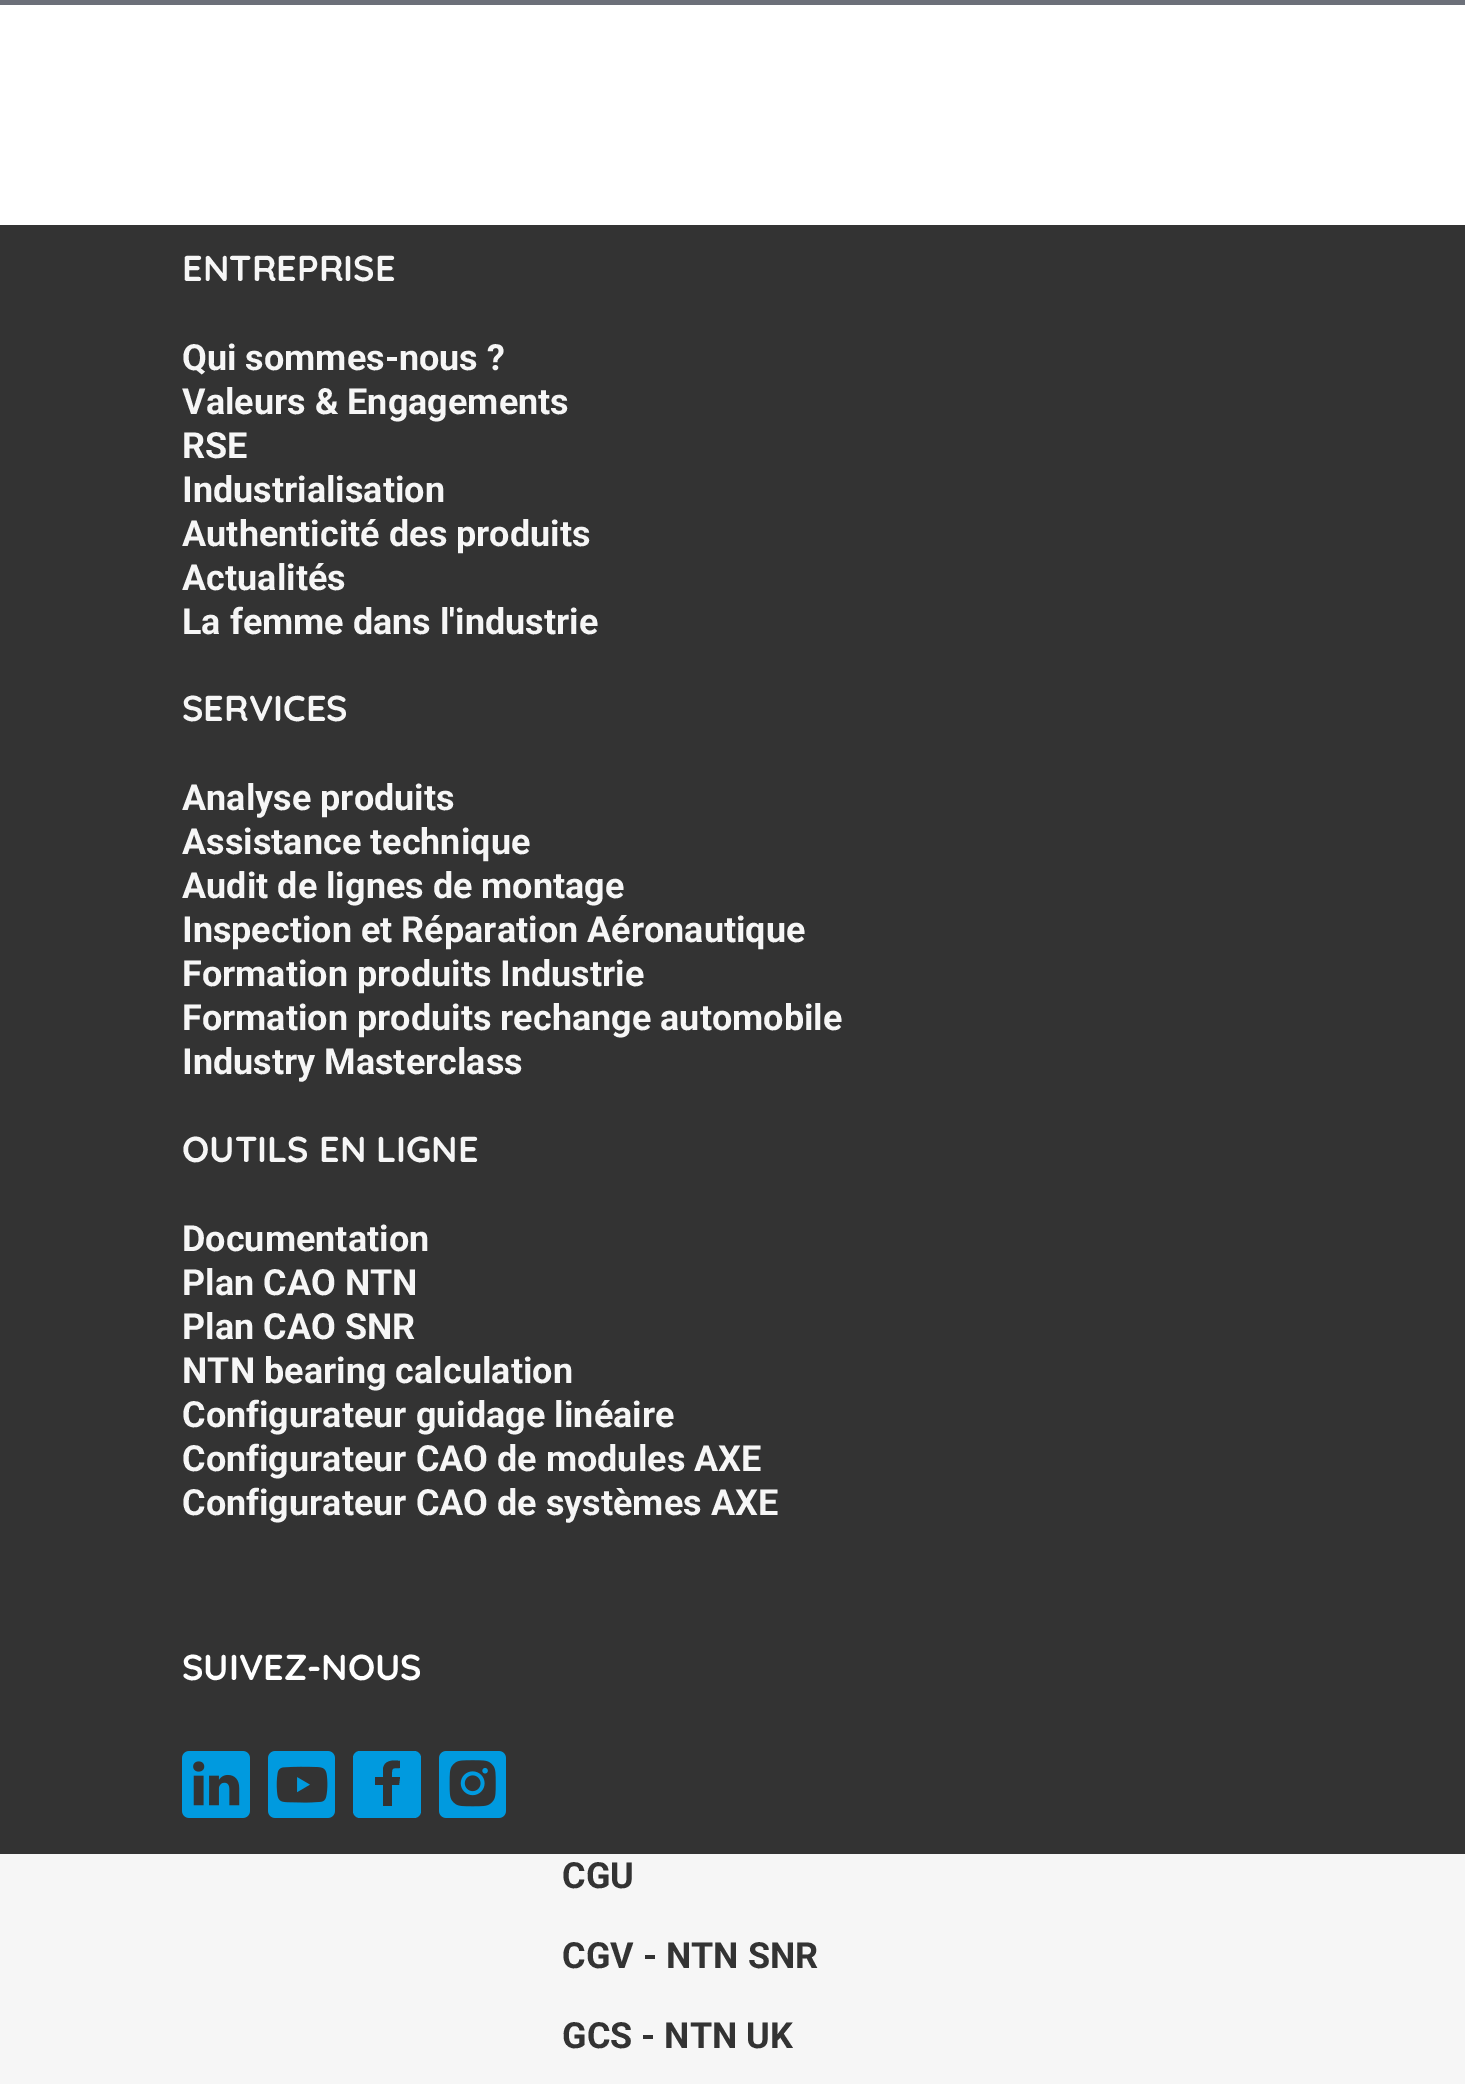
%!PS-Adobe-3.0
%%BoundingBox: 0 0 1465 2084
%%LanguageLevel: 3
%%Pages: 1
%%EndComments
%%BeginProlog
/setink { dup -16 bitshift 255 div exch dup -8 bitshift 255 and 255 div exch 255 and 255 div setrgbcolor } def
/usefont { [ exch dup neg 0 0 3 -1 roll 0 0 ] selectfont } def
/rrect { 5 dict begin { /r /h /w /y /x } { exch def } forall
  x r add y moveto x w add y 2 copy h add r arct x w add y h add x 1 index r arct
  x y h add x y r arct x y 2 copy exch w add exch r arct closepath end } def
/drawimage { 5 dict begin { /h /w /y /x /name } { exch def } forall
  gsave x y translate w h scale
  w h 8 [w 0 0 h 0 0] name (r) file false 3 colorimage grestore end } def
%%EndProlog
%%BeginSetup
<< /PageSize [1465 2084] >> setpagedevice
%%EndSetup
%%Page: 1 1
0 2084 translate 1 -1 scale
4 setmiterlimit
16#FFFFFF setink
0 0 1465 2084 rectfill
16#6C7079 setink
0 0 1465 5 rectfill
16#333333 setink
0 225 1465 1629 rectfill
/Quicksand-Bold 36 usefont
16#F6F6F6 setink
182 281 moveto (ENTREPRISE) show
/Roboto-Bold 36 usefont
[
    [(Qui sommes-nous ?) 182 370]
    [(Valeurs & Engagements) 182 414]
    [(RSE) 182 458]
    [(Industrialisation) 182 502]
    [(Authenticité des produits) 182 546]
    [(Actualités) 182 590]
    [(La femme dans l'industrie) 182 634]
] { aload pop moveto show } forall
/Quicksand-Bold 36 usefont
182 721 moveto (SERVICES) show
/Roboto-Bold 36 usefont
[
    [(Analyse produits) 182 810]
    [(Assistance technique) 182 854]
    [(Audit de lignes de montage) 182 898]
    [(Inspection et Réparation Aéronautique) 182 942]
    [(Formation produits Industrie) 182 986]
    [(Formation produits rechange automobile) 182 1030]
    [(Industry Masterclass) 182 1074]
] { aload pop moveto show } forall
/Quicksand-Bold 36 usefont
182 1162 moveto (OUTILS EN LIGNE) show
/Roboto-Bold 36 usefont
[
    [(Documentation) 182 1251]
    [(Plan CAO NTN) 182 1295]
    [(Plan CAO SNR) 182 1339]
    [(NTN bearing calculation) 182 1383]
    [(Configurateur guidage linéaire) 182 1427]
    [(Configurateur CAO de modules AXE) 182 1471]
    [(Configurateur CAO de systèmes AXE) 182 1515]
] { aload pop moveto show } forall
/Quicksand-Bold 36 usefont
16#FFFFFF setink
182 1680 moveto (SUIVEZ-NOUS) show
(img1.raw) 182 1751 68 67 drawimage
(img2.raw) 268 1751 67 67 drawimage
16#009ADF setink
353 1751 68 67 7 rrect fill
16#333333 setink
392 1806 moveto 392 1785 lineto 399 1785 lineto 400 1777 lineto 392 1777 lineto 392 1768 391 1768 400 1768 curveto 400 1761 lineto 393 1760 384 1760 383 1769 curveto 383 1777 lineto 375 1777 lineto 375 1785 lineto 383 1785 lineto 383 1806 lineto closepath fill
(img3.raw) 439 1751 67 67 drawimage
16#F6F6F6 setink
0 1854 1465 230 rectfill
/Roboto-Bold 36 usefont
16#333333 setink
[
    [(CGU) 562 1888]
    [(CGV - NTN SNR) 562 1968]
    [(GCS - NTN UK) 562 2048]
] { aload pop moveto show } forall
showpage
%%EOF
